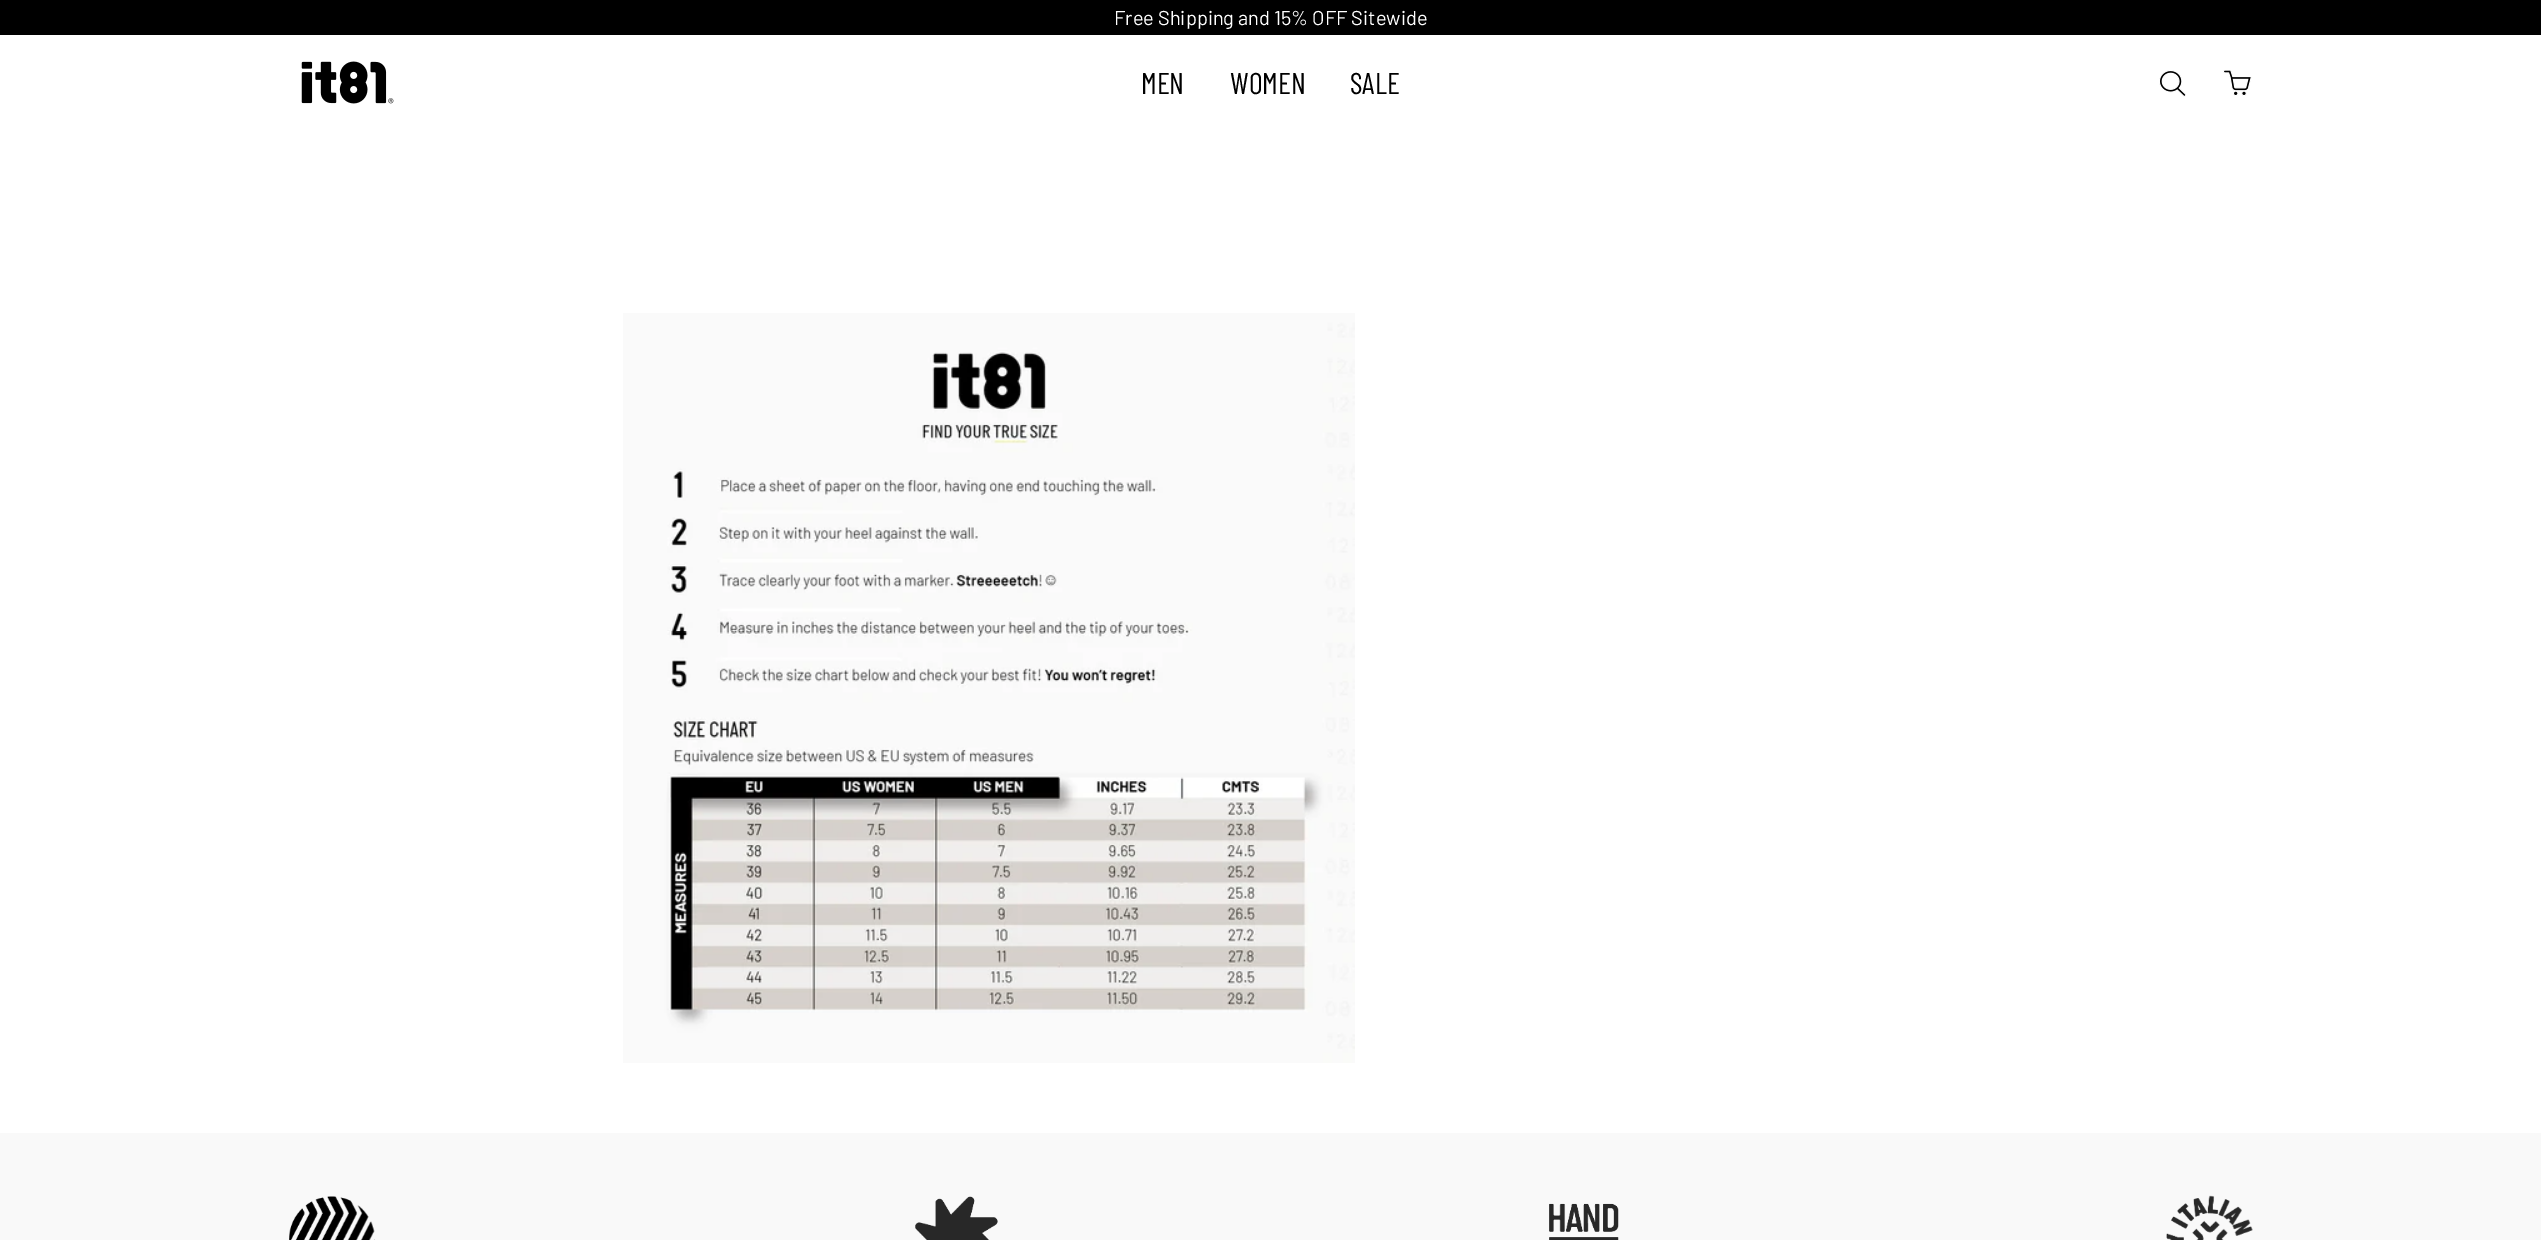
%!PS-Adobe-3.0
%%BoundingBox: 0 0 2541 1240
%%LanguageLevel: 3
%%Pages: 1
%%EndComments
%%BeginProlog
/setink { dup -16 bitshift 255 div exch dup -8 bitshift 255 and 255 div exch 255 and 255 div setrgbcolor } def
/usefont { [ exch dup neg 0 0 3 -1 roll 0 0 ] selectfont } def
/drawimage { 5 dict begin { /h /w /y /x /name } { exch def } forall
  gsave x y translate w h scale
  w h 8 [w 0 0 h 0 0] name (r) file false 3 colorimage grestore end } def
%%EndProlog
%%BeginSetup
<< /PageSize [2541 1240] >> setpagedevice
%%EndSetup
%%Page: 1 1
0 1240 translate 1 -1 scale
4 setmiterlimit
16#FFFFFF setink
0 0 2541 1240 rectfill
16#000000 setink
0 0 2541 35 rectfill
/Barlow-Regular 20 usefont
16#FFFFFF setink
1114 25 moveto (Free Shipping and 15% OFF Sitewide) show
(img1.raw) 301 61 93 43 drawimage
/BarlowCondensed-Regular 30 usefont
16#000000 setink
[
    [(MEN) 1141 94]
    [(WOMEN) 1230 94]
    [(SALE) 1350 94]
] { aload pop moveto show } forall
(img2.raw) 2159 70 27 27 drawimage
(img3.raw) 2223 70 29 26 drawimage
(img4.raw) 623 313 732 750 drawimage
16#F9F9F9 setink
0 1133 2541 107 rectfill
(img5.raw) 289 1196 86 44 drawimage
(img6.raw) 915 1196 83 44 drawimage
(img7.raw) 1549 1203 70 37 drawimage
(img8.raw) 2166 1195 87 45 drawimage
showpage
%%EOF
